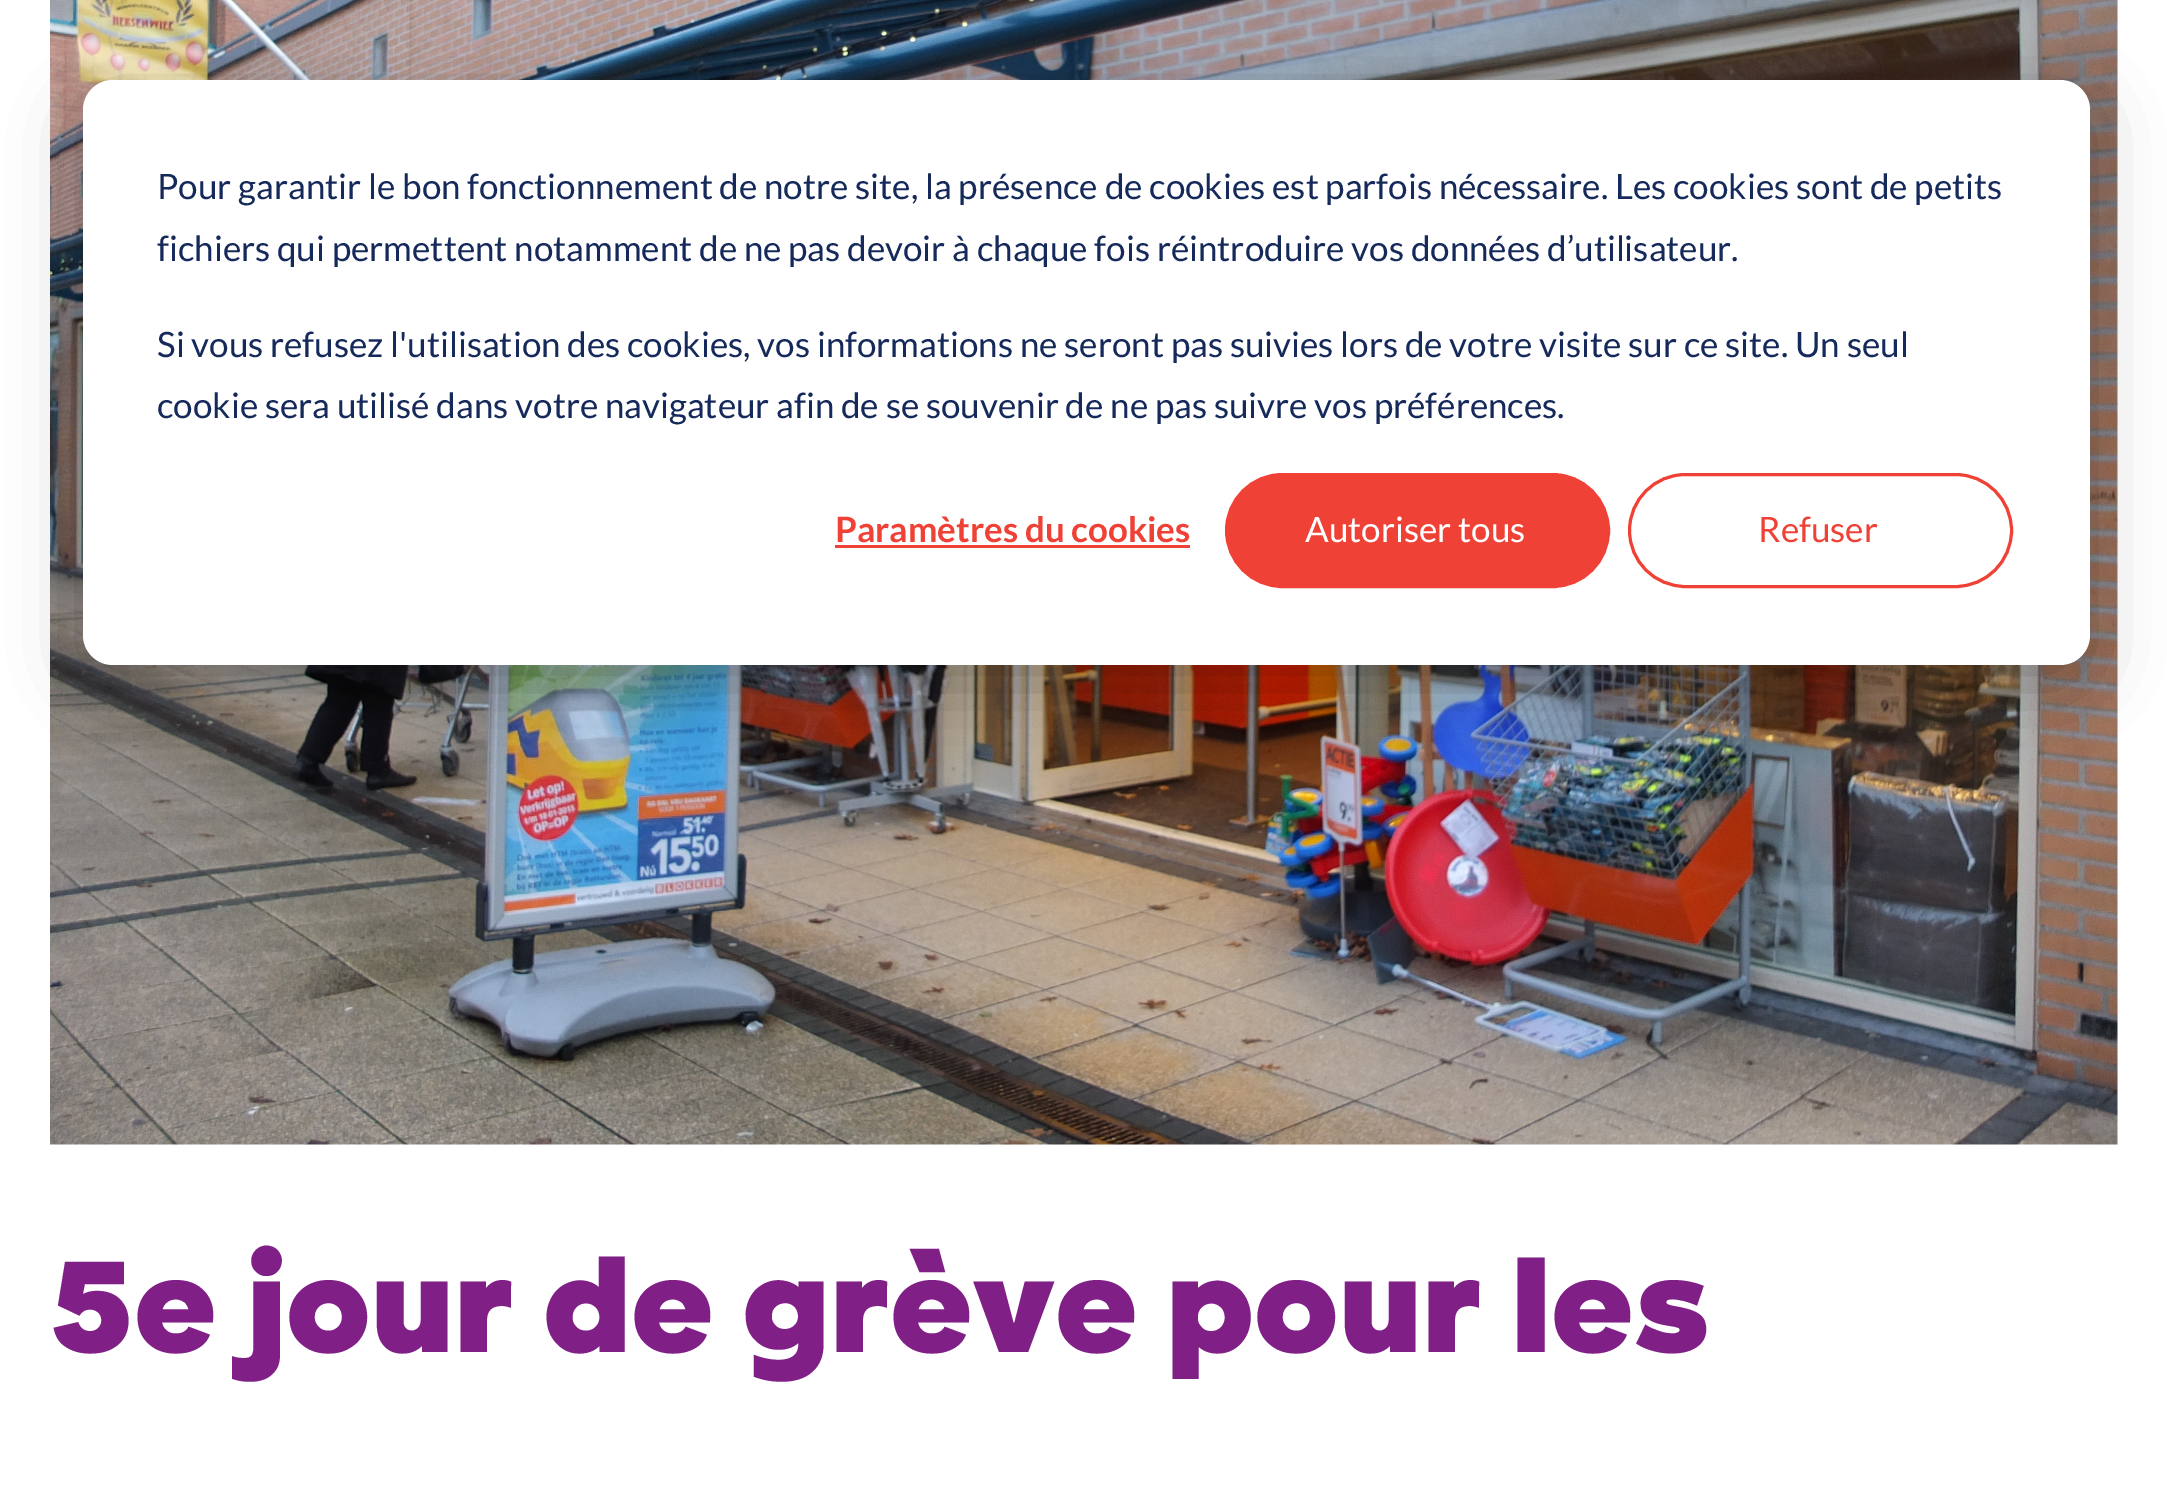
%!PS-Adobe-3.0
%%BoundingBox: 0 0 2167 1493
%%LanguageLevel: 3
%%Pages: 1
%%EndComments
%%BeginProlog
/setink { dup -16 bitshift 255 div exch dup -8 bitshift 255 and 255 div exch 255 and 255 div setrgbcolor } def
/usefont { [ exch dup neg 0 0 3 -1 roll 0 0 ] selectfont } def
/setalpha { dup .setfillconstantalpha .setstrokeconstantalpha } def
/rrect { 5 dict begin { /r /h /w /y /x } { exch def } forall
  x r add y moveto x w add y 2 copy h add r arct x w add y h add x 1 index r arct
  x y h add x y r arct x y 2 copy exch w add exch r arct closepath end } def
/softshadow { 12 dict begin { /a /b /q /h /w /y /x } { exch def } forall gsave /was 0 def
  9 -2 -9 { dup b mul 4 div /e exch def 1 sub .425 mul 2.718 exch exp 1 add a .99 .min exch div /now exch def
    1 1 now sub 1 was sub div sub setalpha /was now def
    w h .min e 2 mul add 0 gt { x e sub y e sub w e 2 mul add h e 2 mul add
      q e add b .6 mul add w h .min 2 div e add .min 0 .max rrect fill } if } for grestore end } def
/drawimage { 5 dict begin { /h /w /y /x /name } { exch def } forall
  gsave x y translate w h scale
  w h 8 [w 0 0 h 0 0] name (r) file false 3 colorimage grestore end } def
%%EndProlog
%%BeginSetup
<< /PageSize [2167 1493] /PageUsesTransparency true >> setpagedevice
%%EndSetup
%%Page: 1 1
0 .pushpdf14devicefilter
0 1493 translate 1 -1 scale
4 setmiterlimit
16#FFFFFF setink
0 0 2167 1493 rectfill
(img1.raw) 50 0 2068 1145 drawimage
gsave
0 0 moveto 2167 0 lineto 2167 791 lineto 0 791 lineto closepath 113 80 moveto 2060 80 lineto 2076.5 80 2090 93.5 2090 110 curveto 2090 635 lineto 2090 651.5 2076.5 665 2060 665 curveto 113 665 lineto 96.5 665 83 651.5 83 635 curveto 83 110 lineto 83 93.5 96.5 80 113 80 curveto closepath eoclip newpath
16#000000 setink
83 100 2007 585 30 35 0.28 softshadow
grestore
83 80 2007 585 30 rrect fill
/Lato-Regular 35 usefont
16#15295A setink
[
    [(Pour garantir le bon fonctionnement de notre site, la présence de cookies est parfois nécessaire. Les cookies sont de petits) 157 199]
    [(fichiers qui permettent notamment de ne pas devoir à chaque fois réintroduire vos données d’utilisateur.) 157 261]
    [(Si vous refusez l'utilisation des cookies, vos informations ne seront pas suivies lors de votre visite sur ce site. Un seul) 157 357]
    [(cookie sera utilisé dans votre navigateur afin de se souvenir de ne pas suivre vos préférences.) 157 418]
] { aload pop moveto show } forall
/Lato-Bold 35 usefont
16#EF4135 setink
835 542 moveto (Paramètres du cookies) show
835 545 355 3 rectfill
1226.5 474.5 382 112 56 rrect gsave fill grestore
3 setlinewidth
stroke
/Lato-Regular 35 usefont
16#FFFFFF setink
1305 542 moveto (Autoriser tous) show
16#EF4135 setink
1629.5 474.5 382 112 56 rrect stroke
1758 542 moveto (Refuser) show
/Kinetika-Black 135 usefont
16#801F86 setink
50 1352 moveto (5e jour de grève pour les) show
.poppdf14devicefilter showpage
%%EOF
